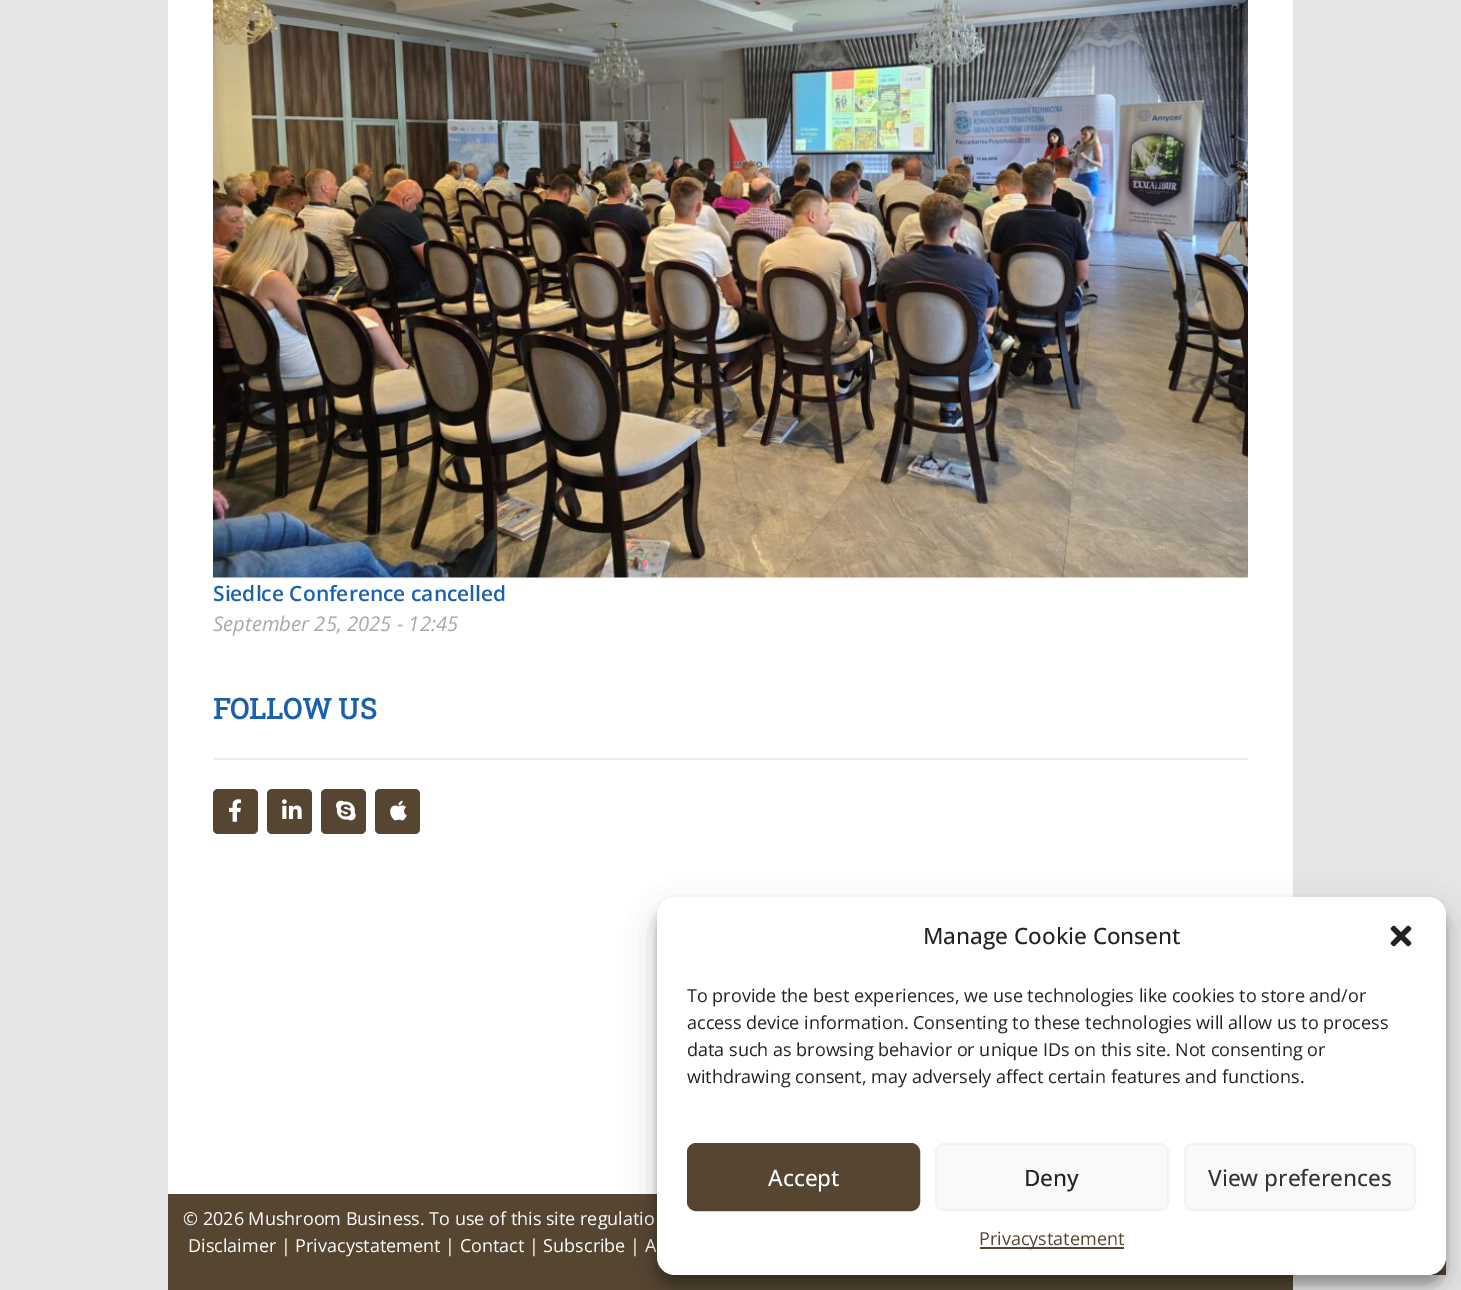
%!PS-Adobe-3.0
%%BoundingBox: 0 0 1461 1290
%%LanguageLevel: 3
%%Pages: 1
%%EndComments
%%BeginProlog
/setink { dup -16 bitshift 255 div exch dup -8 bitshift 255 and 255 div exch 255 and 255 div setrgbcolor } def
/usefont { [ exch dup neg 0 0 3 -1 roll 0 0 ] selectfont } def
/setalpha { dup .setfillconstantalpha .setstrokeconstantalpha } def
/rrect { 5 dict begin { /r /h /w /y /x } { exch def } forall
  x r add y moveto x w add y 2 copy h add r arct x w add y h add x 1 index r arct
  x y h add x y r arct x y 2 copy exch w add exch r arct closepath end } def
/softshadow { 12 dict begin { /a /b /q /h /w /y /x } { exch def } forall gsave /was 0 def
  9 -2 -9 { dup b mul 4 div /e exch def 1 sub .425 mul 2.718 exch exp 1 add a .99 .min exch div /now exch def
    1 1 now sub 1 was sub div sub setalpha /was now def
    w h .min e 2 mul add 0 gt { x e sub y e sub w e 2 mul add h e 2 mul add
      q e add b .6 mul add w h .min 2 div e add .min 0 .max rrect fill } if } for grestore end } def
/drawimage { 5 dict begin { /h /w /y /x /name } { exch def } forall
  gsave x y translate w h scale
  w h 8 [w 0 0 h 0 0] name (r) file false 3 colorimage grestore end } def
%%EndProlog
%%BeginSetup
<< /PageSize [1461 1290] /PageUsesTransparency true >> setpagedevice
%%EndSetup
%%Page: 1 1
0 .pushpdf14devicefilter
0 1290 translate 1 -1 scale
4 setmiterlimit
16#E5E5E5 setink
0 0 1461 1290 rectfill
16#FFFFFF setink
168 0 1125 1194 rectfill
(img1.raw) 213 0 1035 578 drawimage
/OpenSans-SemiBold 21 usefont
16#1961AC setink
213 601 moveto (Siedlce Conference cancelled) show
/OpenSans-Italic 20.25 usefont
16#A8A8A8 setink
213 631 moveto (September 25, 2025 - 12:45) show
/RobotoSlab-Bold 28.5 usefont
16#1961AC setink
213 719 moveto (FOLLOW US) show
16#EEEEEE setink
213 758 1035 2 rectfill
16#564631 setink
213 789 45 45 5 rrect fill
(img2.raw) 229 799 13 23 drawimage
267 789 45 45 5 rrect fill
(img3.raw) 282 799 20 20 drawimage
321 789 45 45 5 rrect fill
(img4.raw) 336 800 20 21 drawimage
375 789 45 45 5 rrect fill
(img5.raw) 390 800 17 21 drawimage
168 1194 1125 96 rectfill
/OpenSans-Regular 18 usefont
16#FFFFFF setink
183 1225 moveto (© 2026 Mushroom Business. To use of this site regulatio) show
188 1252 moveto (Disclaimer | Privacystatement | Contact | Subscribe | A) show
16#564631 setink
1428 1257 18 18 rectfill
16#000000 setink
657 906 789 378 18 4.5 0.23 softshadow
657 912 789 378 18 15 0.19 softshadow
16#FFFFFF setink
657 897 789 378 18 rrect fill
/OpenSans-Medium 22.5 usefont
16#222222 setink
923 944 moveto (Manage Cookie Consent) show
(img6.raw) 1390 925 22 22 drawimage
/OpenSans-Regular 18 usefont
[
    [(To provide the best experiences, we use technologies like cookies to store and/or) 687 1002]
    [(access device information. Consenting to these technologies will allow us to process) 687 1029]
    [(data such as browsing behavior or unique IDs on this site. Not consenting or) 687 1056]
    [(withdrawing consent, may adversely affect certain features and functions.) 687 1083]
] { aload pop moveto show } forall
16#564631 setink
688 1144 231 66 8 rrect gsave fill grestore
2 setlinewidth
stroke
/OpenSans-Medium 22.5 usefont
16#FFFFFF setink
768 1186 moveto (Accept) show
16#F9F9F9 setink
936 1144 232 66 8 rrect gsave fill grestore
16#F2F2F2 setink
stroke
16#222222 setink
1024 1186 moveto (Deny) show
16#F9F9F9 setink
1185 1144 230 66 8 rrect gsave fill grestore
16#F2F2F2 setink
stroke
16#333333 setink
1208 1186 moveto (View preferences) show
16#564631 setink
980 1247 144 2 rectfill
/OpenSans-Regular 18 usefont
979 1245 moveto (Privacystatement) show
.poppdf14devicefilter showpage
%%EOF
